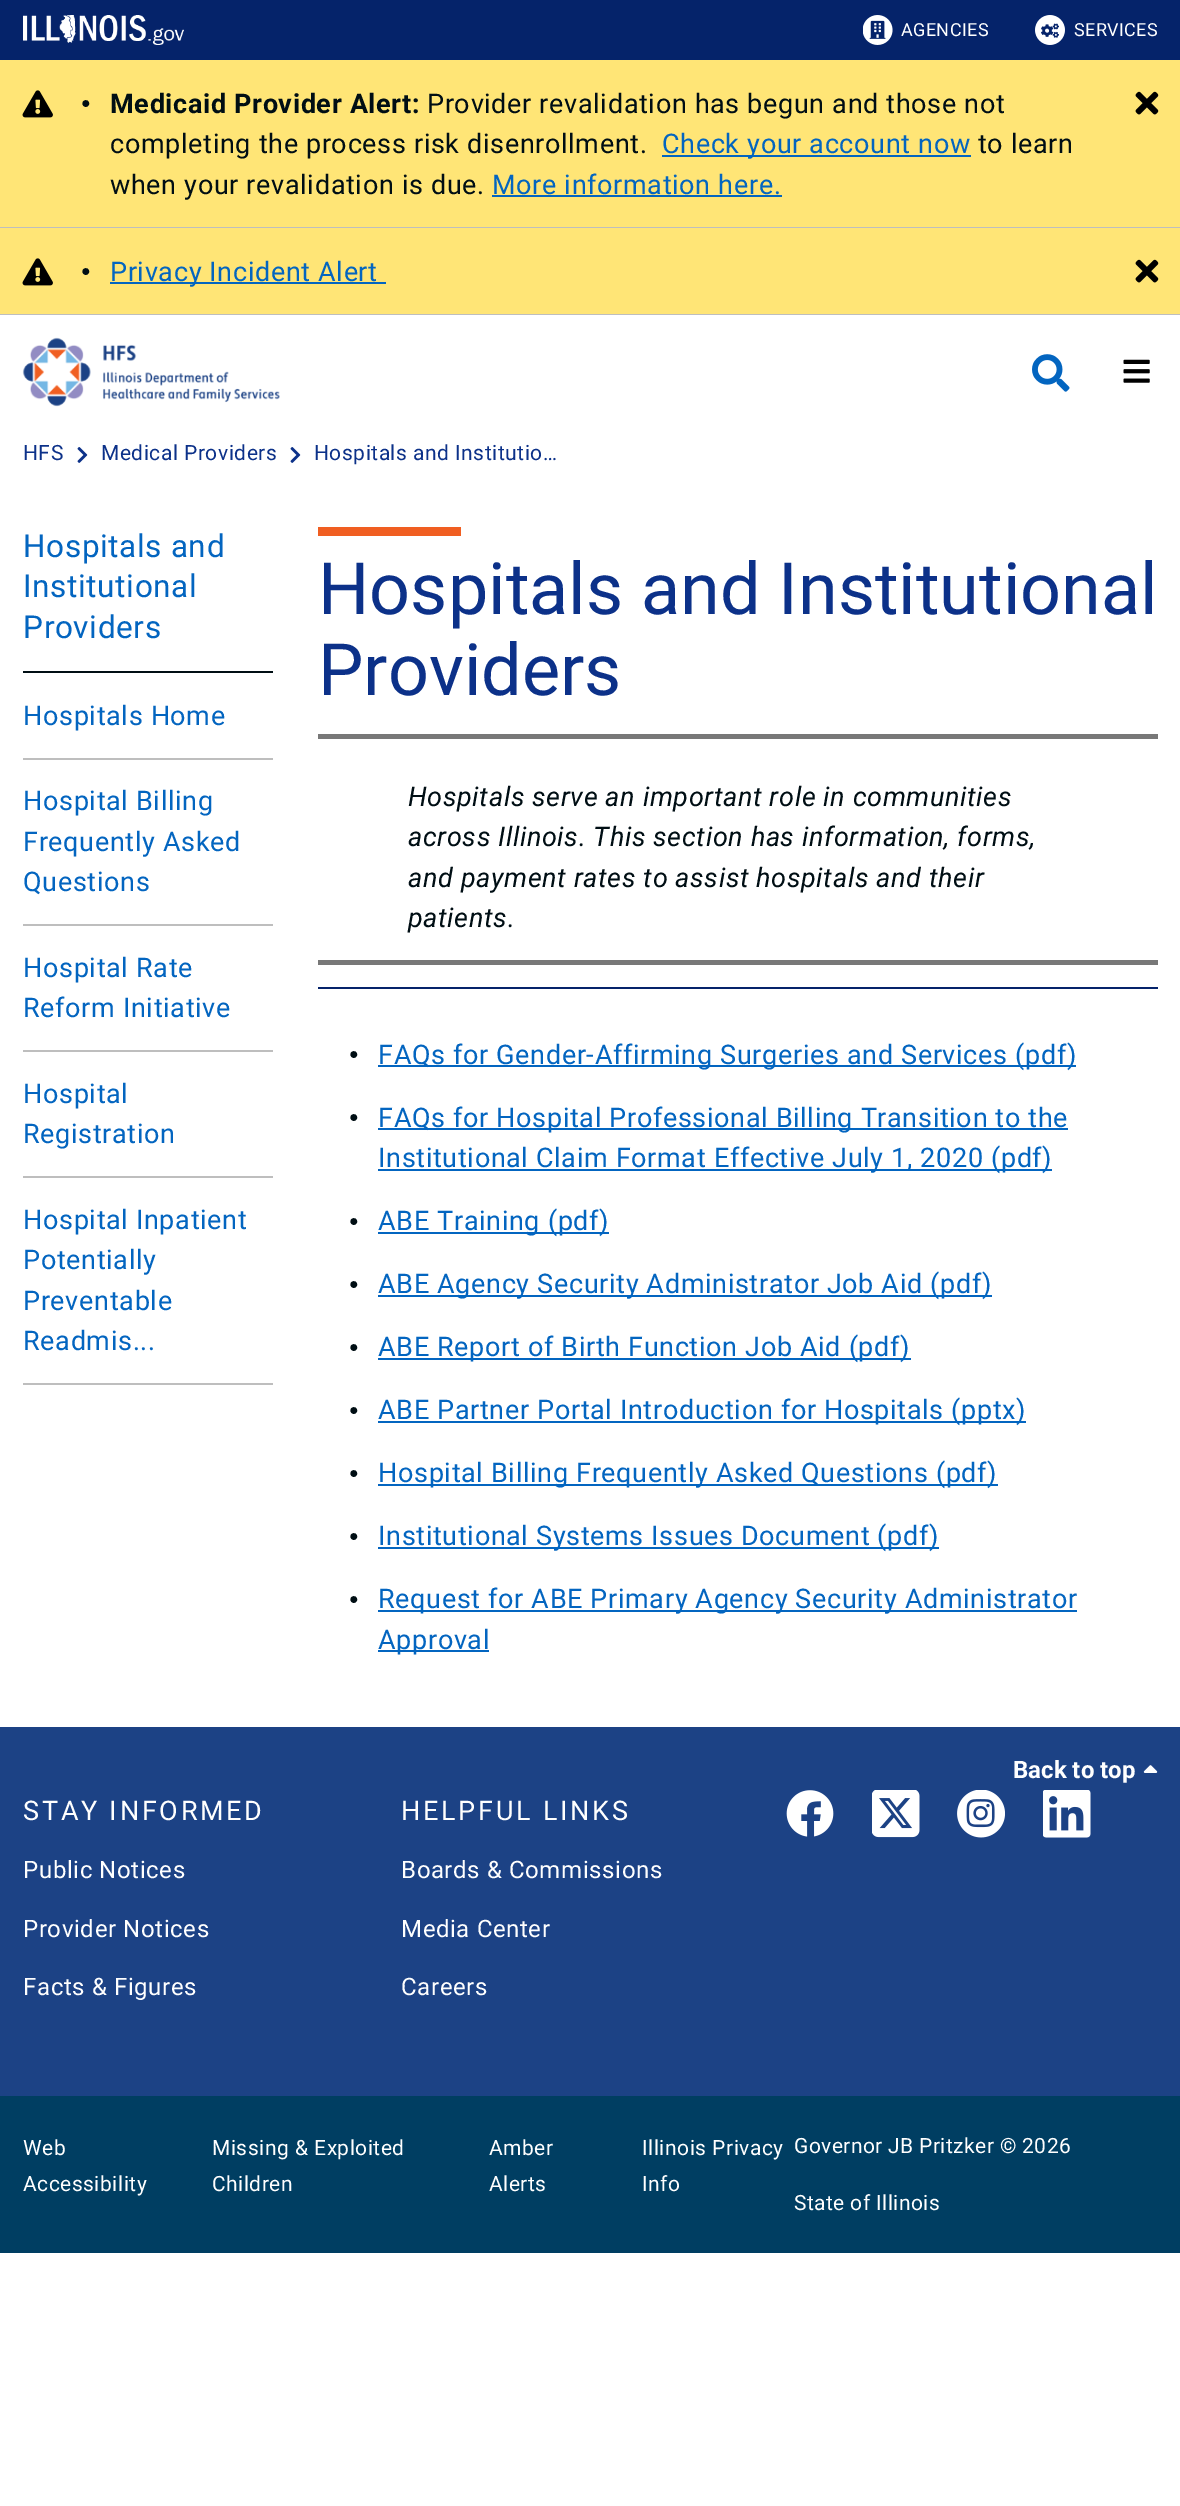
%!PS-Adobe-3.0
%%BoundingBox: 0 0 1180 2506
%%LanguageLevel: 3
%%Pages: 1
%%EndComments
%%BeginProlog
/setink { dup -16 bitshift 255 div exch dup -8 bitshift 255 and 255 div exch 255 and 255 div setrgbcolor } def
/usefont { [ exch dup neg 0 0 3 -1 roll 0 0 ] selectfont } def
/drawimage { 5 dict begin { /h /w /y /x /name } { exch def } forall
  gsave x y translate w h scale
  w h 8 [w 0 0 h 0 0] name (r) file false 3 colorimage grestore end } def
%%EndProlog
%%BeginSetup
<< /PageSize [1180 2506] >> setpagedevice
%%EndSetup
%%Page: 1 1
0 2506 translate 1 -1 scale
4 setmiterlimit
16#FFFFFF setink
0 0 1180 2506 rectfill
16#05236A setink
0 0 1180 60 rectfill
(img1.raw) 23 15 161 30 drawimage
(img2.raw) 863 15 30 30 drawimage
/Roboto-Regular 18 usefont
16#FFFFFF setink
901 36 moveto 0.4 0 (AGENCIES) ashow
(img3.raw) 1035 15 30 30 drawimage
1074 36 moveto 0.4 0 (SERVICES) ashow
16#FFE576 setink
0 60 1180 167 rectfill
16#BEBEBE setink
0 227 1180 1 rectfill
(img4.raw) 22 90 31 28 drawimage
/LiberationSans-Regular 16 usefont
16#000E14 setink
81 108 moveto 0.65 0 (●) ashow
/Roboto-Bold 27 usefont
110 113 moveto 0.65 0 (Medicaid Provider Alert:) ashow
/Roboto-Regular 27 usefont
427 113 moveto 0.65 0 (Provider revalidation has begun and those not) ashow
110 153 moveto 0.65 0 (completing the process risk disenrollment.) ashow
16#0365C0 setink
662 155 309 2 rectfill
662 153 moveto 0.65 0 (Check your account now) ashow
16#000E14 setink
978 153 moveto 0.65 0 (to learn) ashow
110 194 moveto 0.65 0 (when your revalidation is due.) ashow
16#0365C0 setink
492 194 moveto 0.65 0 (More information here.) ashow
492 195 290 2 rectfill
(img5.raw) 1135 91 24 24 drawimage
16#FFE576 setink
0 228 1180 86 rectfill
16#BEBEBE setink
0 314 1180 1 rectfill
(img4.raw) 22 258 31 28 drawimage
/LiberationSans-Regular 16 usefont
16#000E14 setink
81 276 moveto 0.65 0 (●) ashow
16#0365C0 setink
110 282 276 2 rectfill
/Roboto-Regular 27 usefont
110 281 moveto 0.65 0 (Privacy Incident Alert) ashow
(img5.raw) 1135 259 24 24 drawimage
(img6.raw) 22 337 258 70 drawimage
(img7.raw) 1032 354 38 38 drawimage
(img8.raw) 1123 359 27 24 drawimage
/Roboto-Regular 21 usefont
16#0C3189 setink
23 460 moveto 0.5 0 (HFS) ashow
(img9.raw) 77 447 11 16 drawimage
101 460 moveto 0.5 0 (Medical Providers) ashow
(img9.raw) 290 447 11 16 drawimage
314 460 moveto 0.5 0 (Hospitals and Institutio…) ashow
/Roboto-Regular 31.5 usefont
16#0365C0 setink
23 557 moveto 0.65 0 (Hospitals and) ashow
23 597 moveto 0.65 0 (Institutional) ashow
23 638 moveto 0.65 0 (Providers) ashow
16#000E14 setink
23 671 250 2 rectfill
16#BEBEBE setink
23 1383 250 2 rectfill
/Roboto-Regular 27 usefont
16#0365C0 setink
23 725 moveto 0.65 0 (Hospitals Home) ashow
16#BEBEBE setink
23 758 250 2 rectfill
16#0365C0 setink
23 810 moveto 0.65 0 (Hospital Billing) ashow
23 851 moveto 0.65 0 (Frequently Asked) ashow
23 891 moveto 0.65 0 (Questions) ashow
16#BEBEBE setink
23 924 250 2 rectfill
16#0365C0 setink
23 977 moveto 0.65 0 (Hospital Rate) ashow
23 1017 moveto 0.65 0 (Reform Initiative) ashow
16#BEBEBE setink
23 1050 250 2 rectfill
16#0365C0 setink
23 1103 moveto 0.65 0 (Hospital) ashow
23 1143 moveto 0.65 0 (Registration) ashow
16#BEBEBE setink
23 1176 250 2 rectfill
16#0365C0 setink
23 1229 moveto 0.65 0 (Hospital Inpatient) ashow
23 1269 moveto 0.65 0 (Potentially) ashow
23 1310 moveto 0.65 0 (Preventable) ashow
23 1350 moveto 0.65 0 (Readmis...) ashow
16#F05E21 setink
318 527 143 9 rectfill
/Roboto-Regular 72 usefont
16#0C3189 setink
318 614 moveto (Hospitals and Institutional) show
318 695 moveto (Providers) show
16#787878 setink
318 734 840 5 rectfill
318 960 840 5 rectfill
/Roboto-Italic 27 usefont
16#000E14 setink
408 806 moveto 0.65 0 (Hospitals serve an important role in communities) ashow
408 846 moveto 0.65 0 (across Illinois. This section has information, forms,) ashow
408 887 moveto 0.65 0 (and payment rates to assist hospitals and their) ashow
408 927 moveto 0.65 0 (patients.) ashow
16#05236A setink
318 987 840 2 rectfill
/LiberationSans-Regular 16 usefont
16#000E14 setink
349 1059 moveto 0.65 0 (●) ashow
16#0365C0 setink
378 1065 698 2 rectfill
/Roboto-Regular 27 usefont
378 1064 moveto 0.65 0 (FAQs for Gender-Affirming Surgeries and Services \(pdf\)) ashow
/LiberationSans-Regular 16 usefont
16#000E14 setink
349 1122 moveto 0.65 0 (●) ashow
16#0365C0 setink
378 1128 690 2 rectfill
/Roboto-Regular 27 usefont
378 1127 moveto 0.65 0 (FAQs for Hospital Professional Billing Transition to the) ashow
378 1169 674 2 rectfill
378 1167 moveto 0.65 0 (Institutional Claim Format Effective July 1, 2020 \(pdf\)) ashow
/LiberationSans-Regular 16 usefont
16#000E14 setink
349 1226 moveto 0.65 0 (●) ashow
16#0365C0 setink
378 1232 231 2 rectfill
/Roboto-Regular 27 usefont
378 1230 moveto 0.65 0 (ABE Training \(pdf\)) ashow
/LiberationSans-Regular 16 usefont
16#000E14 setink
349 1289 moveto 0.65 0 (●) ashow
16#0365C0 setink
378 1295 614 2 rectfill
/Roboto-Regular 27 usefont
378 1293 moveto 0.65 0 (ABE Agency Security Administrator Job Aid \(pdf\)) ashow
/LiberationSans-Regular 16 usefont
16#000E14 setink
349 1352 moveto 0.65 0 (●) ashow
16#0365C0 setink
378 1358 533 2 rectfill
/Roboto-Regular 27 usefont
378 1356 moveto 0.65 0 (ABE Report of Birth Function Job Aid \(pdf\)) ashow
/LiberationSans-Regular 16 usefont
16#000E14 setink
349 1415 moveto 0.65 0 (●) ashow
16#0365C0 setink
378 1421 648 2 rectfill
/Roboto-Regular 27 usefont
378 1419 moveto 0.65 0 (ABE Partner Portal Introduction for Hospitals \(pptx\)) ashow
/LiberationSans-Regular 16 usefont
16#000E14 setink
349 1478 moveto 0.65 0 (●) ashow
16#0365C0 setink
378 1484 620 2 rectfill
/Roboto-Regular 27 usefont
378 1482 moveto 0.65 0 (Hospital Billing Frequently Asked Questions \(pdf\)) ashow
/LiberationSans-Regular 16 usefont
16#000E14 setink
349 1541 moveto 0.65 0 (●) ashow
16#0365C0 setink
378 1547 561 2 rectfill
/Roboto-Regular 27 usefont
378 1545 moveto 0.65 0 (Institutional Systems Issues Document \(pdf\)) ashow
/LiberationSans-Regular 16 usefont
16#000E14 setink
349 1604 moveto 0.65 0 (●) ashow
16#0365C0 setink
378 1610 699 2 rectfill
/Roboto-Regular 27 usefont
378 1608 moveto 0.65 0 (Request for ABE Primary Agency Security Administrator) ashow
378 1650 111 2 rectfill
378 1649 moveto 0.65 0 (Approval) ashow
16#1C4285 setink
0 1727 1180 369 rectfill
/Roboto-Bold 24 usefont
16#FFFFFF setink
1013 1778 moveto (Back to top) show
(img10.raw) 1143 1765 15 8 drawimage
/Roboto-Regular 27 usefont
23 1820 moveto 2.75 0 (STAY INFORMED) ashow
/Roboto-Regular 24 usefont
23 1878 moveto 0.6 0 (Public Notices) ashow
23 1937 moveto 0.6 0 (Provider Notices) ashow
23 1995 moveto 0.6 0 (Facts & Figures) ashow
/Roboto-Regular 27 usefont
401 1820 moveto 2.75 0 (HELPFUL LINKS) ashow
/Roboto-Regular 24 usefont
401 1878 moveto 0.6 0 (Boards & Commissions) ashow
401 1937 moveto 0.6 0 (Media Center) ashow
401 1995 moveto 0.6 0 (Careers) ashow
(img11.raw) 786 1790 48 47 drawimage
(img12.raw) 872 1790 48 48 drawimage
(img13.raw) 957 1790 48 48 drawimage
(img14.raw) 1043 1790 48 48 drawimage
16#003E62 setink
0 2096 1180 157 rectfill
/Roboto-Regular 21 usefont
16#FFFFFF setink
23 2155 moveto 0.5 0 (Web) ashow
23 2191 moveto 0.5 0 (Accessibility) ashow
212 2155 moveto 0.5 0 (Missing & Exploited) ashow
212 2191 moveto 0.5 0 (Children) ashow
489 2155 moveto 0.5 0 (Amber) ashow
489 2191 moveto 0.5 0 (Alerts) ashow
642 2155 moveto 0.5 0 (Illinois Privacy) ashow
642 2191 moveto 0.5 0 (Info) ashow
794 2153 moveto 0.4 0 (Governor JB Pritzker © 2026) ashow
794 2210 moveto 0.4 0 (State of Illinois) ashow
showpage
%%EOF
